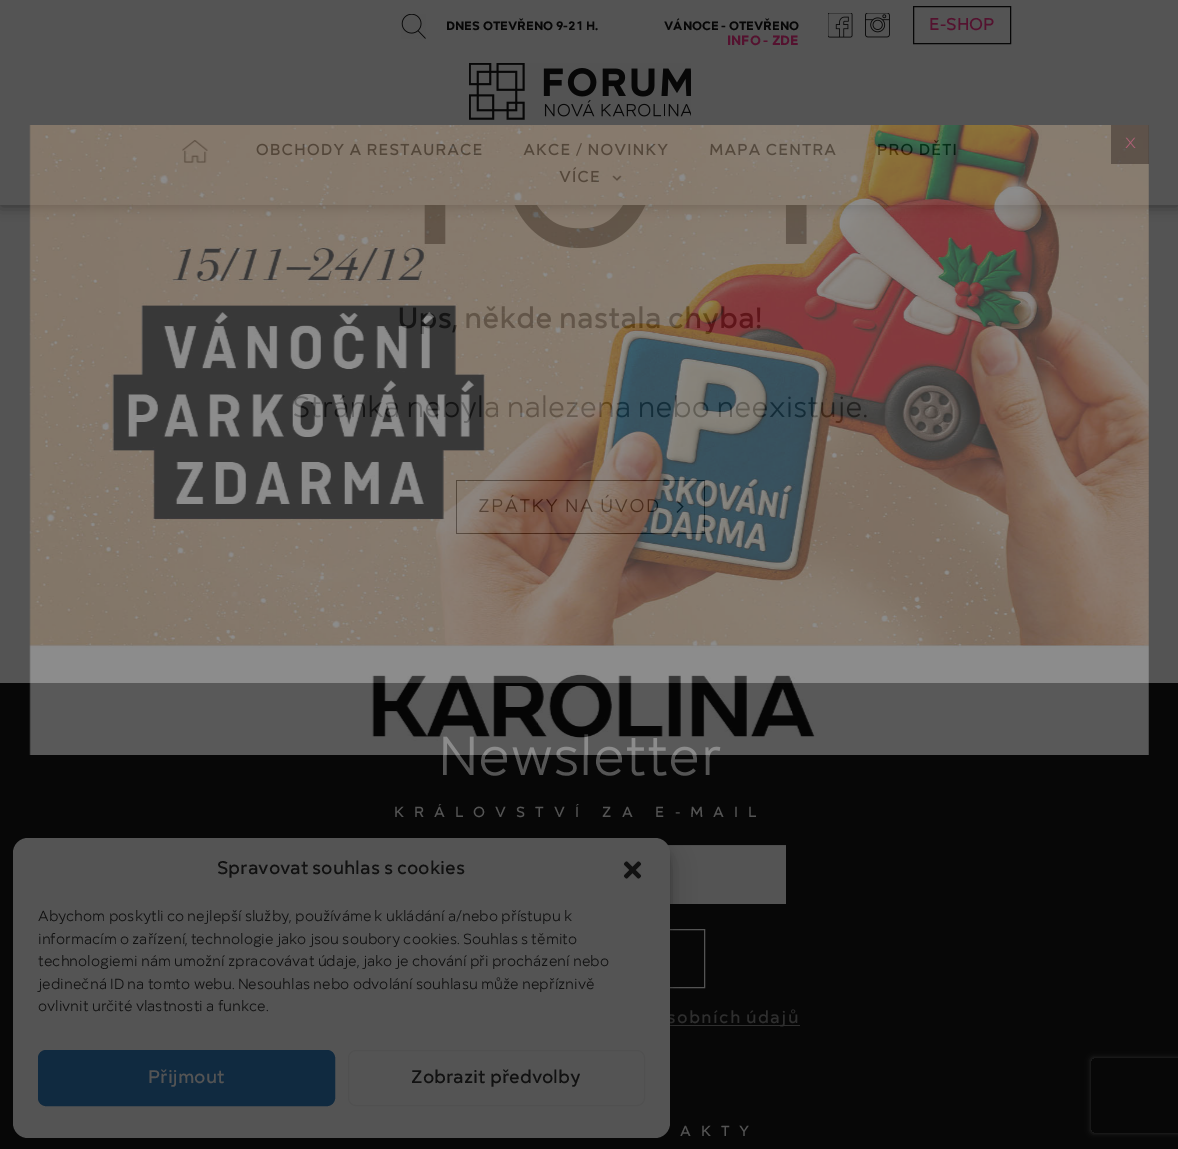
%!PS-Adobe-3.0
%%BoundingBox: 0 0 1178 1149
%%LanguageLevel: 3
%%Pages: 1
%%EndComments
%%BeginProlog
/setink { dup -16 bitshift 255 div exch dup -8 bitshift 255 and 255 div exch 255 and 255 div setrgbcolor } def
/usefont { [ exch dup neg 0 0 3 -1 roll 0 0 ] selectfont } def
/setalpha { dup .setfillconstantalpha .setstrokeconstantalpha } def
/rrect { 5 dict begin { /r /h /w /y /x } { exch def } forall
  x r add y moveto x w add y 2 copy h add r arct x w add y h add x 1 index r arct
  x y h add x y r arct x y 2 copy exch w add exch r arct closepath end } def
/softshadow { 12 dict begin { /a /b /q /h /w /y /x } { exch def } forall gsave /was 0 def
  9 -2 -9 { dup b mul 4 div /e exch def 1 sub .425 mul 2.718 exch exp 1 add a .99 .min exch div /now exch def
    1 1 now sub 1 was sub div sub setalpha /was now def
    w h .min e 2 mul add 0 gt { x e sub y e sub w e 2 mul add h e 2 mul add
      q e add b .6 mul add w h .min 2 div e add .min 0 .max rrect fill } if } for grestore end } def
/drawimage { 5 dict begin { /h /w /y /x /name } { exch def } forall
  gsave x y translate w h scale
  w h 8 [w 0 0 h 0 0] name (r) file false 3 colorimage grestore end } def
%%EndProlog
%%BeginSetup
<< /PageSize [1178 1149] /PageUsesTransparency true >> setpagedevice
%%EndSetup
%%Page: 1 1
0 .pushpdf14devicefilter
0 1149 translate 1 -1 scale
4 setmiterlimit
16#545454 setink
0 0 1178 1149 rectfill
16#070707 setink
1 4 1177 202 0 7 0.46 softshadow
16#545454 setink
0 0 1178 205 rectfill
(img1.raw) 401 14 25 25 drawimage
/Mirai-Bold 12.6 usefont
16#070707 setink
446 30 moveto (DNES OTEVŘENO 9-21 H.) show
664 30 moveto (VÁNOCE - OTEVŘENO) show
/Mirai-Bold 13.75 usefont
16#54122F setink
727 45 moveto (INFO - ZDE) show
(img2.raw) 828 13 25 25 drawimage
(img3.raw) 865 13 25 25 drawimage
16#070707 setink
913.5 6.5 97 37 rectstroke
/Mirai-Medium 17.5 usefont
16#54122F setink
929 30 moveto (E-SHOP) show
(img4.raw) 469 63 222 57 drawimage
(img5.raw) 182 140 26 23 drawimage
/Mirai-Medium 16.25 usefont
16#070707 setink
256 155 moveto 1 0 (OBCHODY A RESTAURACE) ashow
523 155 moveto 1 0 (AKCE / NOVINKY) ashow
709 155 moveto 1 0 (MAPA CENTRA) ashow
877 155 moveto 1 0 (PRO DĚTI) ashow
559 182 moveto 1 0 (VÍCE) ashow
(img6.raw) 612 175 10 6 drawimage
/Mirai-Medium 30 usefont
16#1D1D1D setink
398 328 moveto (Ups, někde nastala chyba!) show
/Mirai-Regular 30 usefont
292 417 moveto (Stránka nebyla nalezena nebo neexistuje.) show
16#070707 setink
456.5 480.5 248 53 rectstroke
/Mirai-Regular 18.75 usefont
478 512 moveto 1.5 0 (ZPÁTKY NA ÚVOD) ashow
676.5 501.5 moveto 677.5 500.5 lineto 683.5 506.5 lineto 682.5 507.5 lineto closepath fill
676.5 512 moveto 682.5 506 lineto 683.5 506.5 lineto 677.5 513 lineto closepath fill
0 683 1178 466 rectfill
/Mirai-Regular 56.25 usefont
16#545454 setink
438 775 moveto (Newsletter) show
(img7.raw) 29 125 1120 630 drawimage
0.33 setalpha
16#0A0000 setink
1111 125 38 39 rectfill
/Mirai-Regular 15 usefont
1 setalpha
16#AE6076 setink
1125 148 moveto (X) show
gsave
149 804 862 239 rectclip
/Mirai-Medium 15 usefont
16#545454 setink
394 817 moveto 10 0 (KRÁLOVSTVÍ ZA E-MAIL) ashow
grestore
16#545454 setink
668 846 118 58 rectfill
16#4E4E4E setink
667 845 119 1 rectfill
16#545454 setink
456.5 929.5 248 58 rectstroke
16#2F2F2F setink
670 1025 130 1 rectfill
/Mirai-Medium 17.5 usefont
667 1023 moveto 1.25 0 (sobních údajů) ashow
/Mirai-Medium 15 usefont
16#545454 setink
680 1136 moveto 10 0 (AKTY) ashow
16#070707 setink
13 845 657 300 15 4 0.23 softshadow
13 850 657 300 15 12.5 0.19 softshadow
16#545454 setink
13 838 657 300 15 rrect fill
/Mirai-Medium 18.75 usefont
16#111111 setink
217 874 moveto (Spravovat souhlas s cookies) show
(img8.raw) 623 861 19 18 drawimage
/Mirai-Regular 15 usefont
[
    [(Abychom poskytli co nejlepší služby, používáme k ukládání a/nebo přístupu k) 38 921]
    [(informacím o zařízení, technologie jako jsou soubory cookies. Souhlas s těmito) 38 944]
    [(technologiemi nám umožní zpracovávat údaje, jako je chování při procházení nebo) 38 966]
    [(jedinečná ID na tomto webu. Nesouhlas nebo odvolání souhlasu může nepříznivě) 38 989]
    [(ovlivnit určité vlastnosti a funkce.) 38 1011]
] { aload pop moveto show } forall
16#102A40 setink
38.5 1050.5 296 55 7.5 rrect gsave fill grestore
stroke
/Mirai-Medium 18.75 usefont
16#545454 setink
148 1083 moveto (Přijmout) show
16#505050 setink
348.5 1050.5 296 55 7.5 rrect stroke
16#111111 setink
411 1083 moveto (Zobrazit předvolby) show
gsave
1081 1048 moveto 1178 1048 lineto 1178 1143 lineto 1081 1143 lineto closepath 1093.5 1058 moveto 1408.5 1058 lineto 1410 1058 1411 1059 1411 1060.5 curveto 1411 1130.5 lineto 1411 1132 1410 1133 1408.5 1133 curveto 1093.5 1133 lineto 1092 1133 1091 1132 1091 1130.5 curveto 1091 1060.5 lineto 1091 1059 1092 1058 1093.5 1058 curveto closepath eoclip newpath
16#2D2D2D setink
1091 1058 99 75 2.5 3 1 softshadow
grestore
.poppdf14devicefilter showpage
%%EOF
